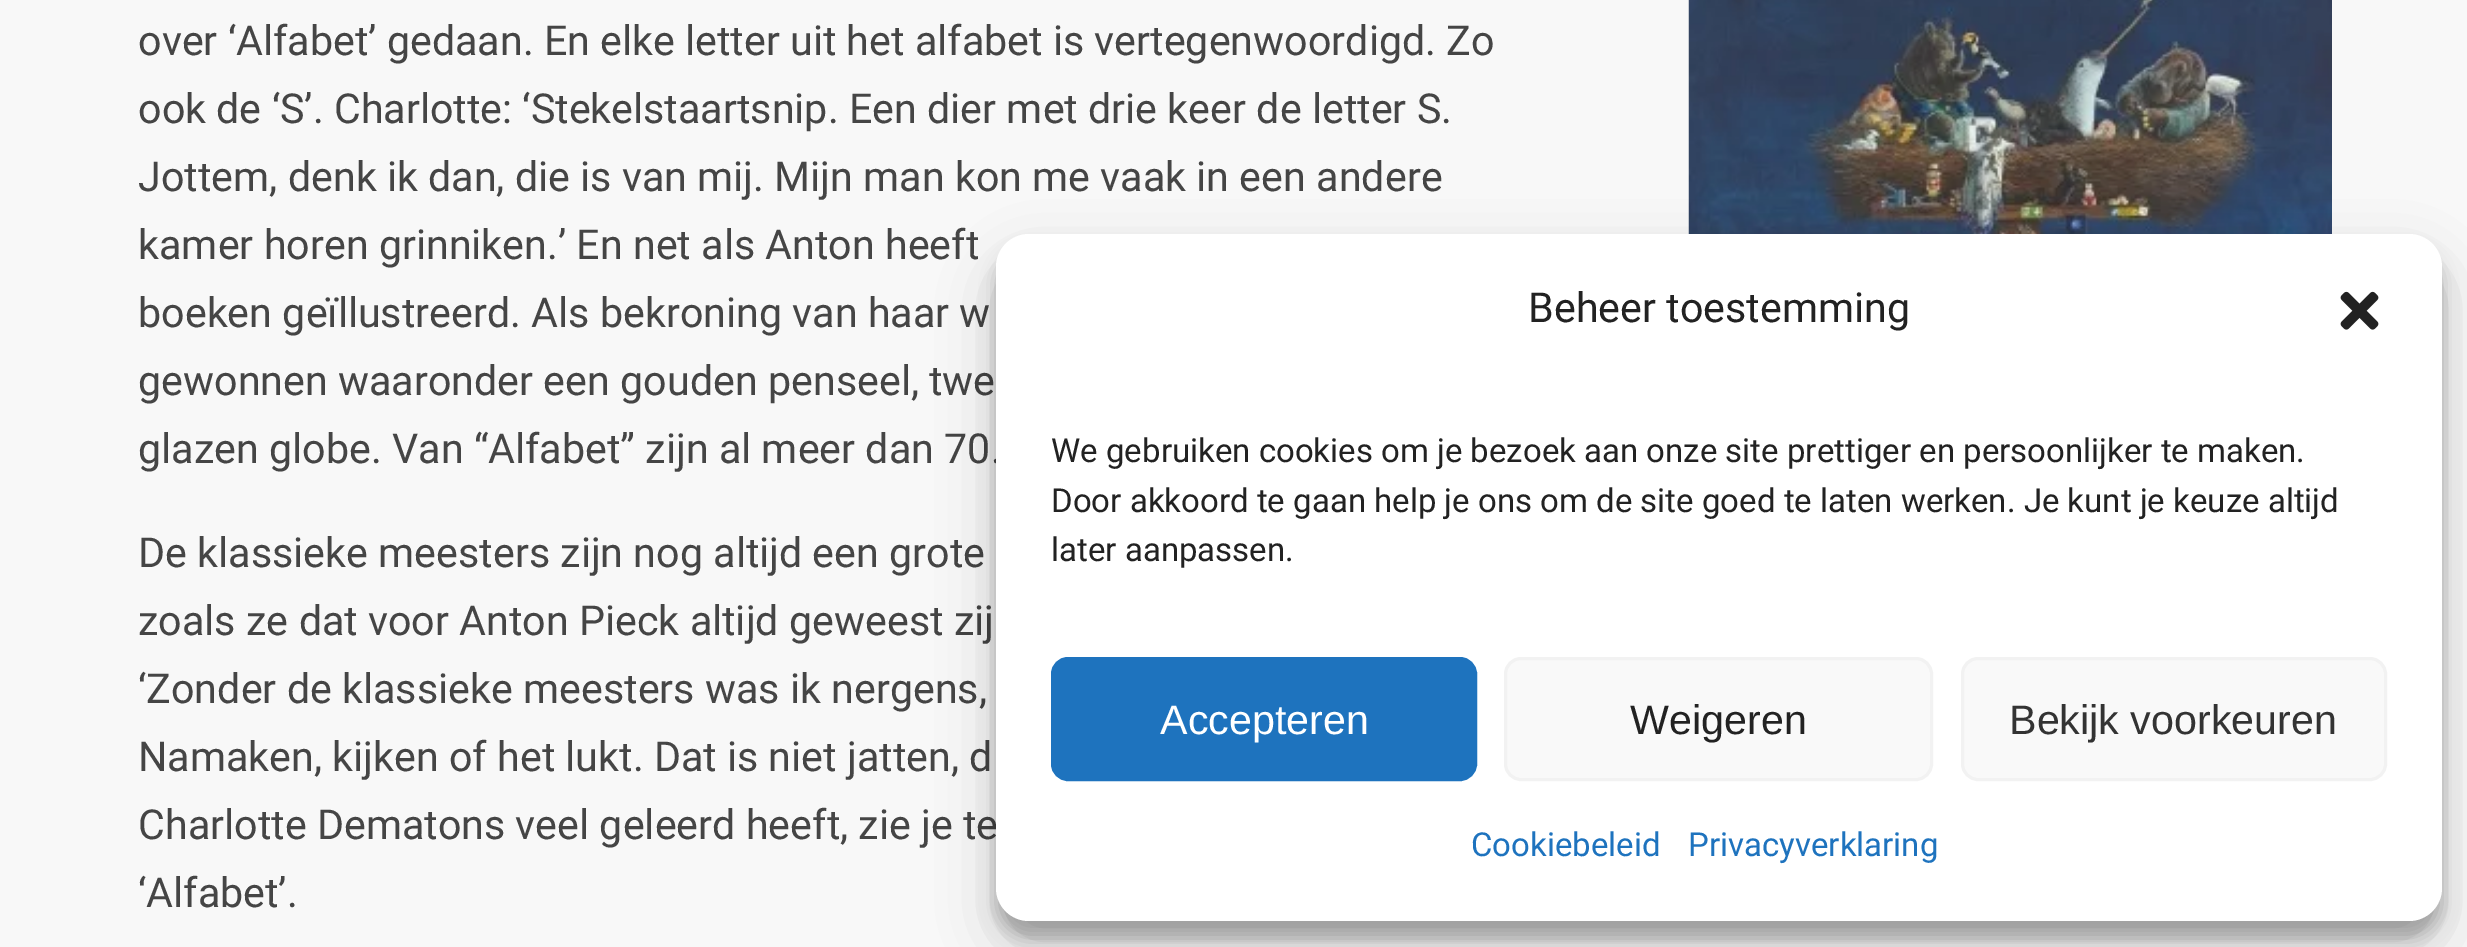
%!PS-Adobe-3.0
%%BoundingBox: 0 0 2467 947
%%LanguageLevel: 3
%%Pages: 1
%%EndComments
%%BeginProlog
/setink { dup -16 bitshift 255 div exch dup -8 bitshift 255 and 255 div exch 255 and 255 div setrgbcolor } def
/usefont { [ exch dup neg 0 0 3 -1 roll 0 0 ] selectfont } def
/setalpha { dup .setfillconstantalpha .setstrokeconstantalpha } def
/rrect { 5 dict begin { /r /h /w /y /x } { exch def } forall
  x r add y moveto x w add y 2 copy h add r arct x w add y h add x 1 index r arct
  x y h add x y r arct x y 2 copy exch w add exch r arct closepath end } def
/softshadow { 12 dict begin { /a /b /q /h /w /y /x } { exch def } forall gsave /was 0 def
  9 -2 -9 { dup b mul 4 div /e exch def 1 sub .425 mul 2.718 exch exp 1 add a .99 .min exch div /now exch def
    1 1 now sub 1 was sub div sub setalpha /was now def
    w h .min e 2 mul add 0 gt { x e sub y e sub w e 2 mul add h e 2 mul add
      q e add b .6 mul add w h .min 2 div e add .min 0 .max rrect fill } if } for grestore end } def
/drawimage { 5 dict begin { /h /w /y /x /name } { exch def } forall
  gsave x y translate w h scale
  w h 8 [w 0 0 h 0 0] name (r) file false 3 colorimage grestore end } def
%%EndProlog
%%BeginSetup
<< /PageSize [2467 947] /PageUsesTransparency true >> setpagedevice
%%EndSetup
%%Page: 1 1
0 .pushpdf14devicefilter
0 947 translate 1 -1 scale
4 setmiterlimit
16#F8F8F8 setink
0 0 2467 947 rectfill
/Roboto-Regular 41.25 usefont
16#454545 setink
[
    [(over ‘Alfabet’ gedaan. En elke letter uit het alfabet is vertegenwoordigd. Zo) 138 55]
    [(ook de ‘S’. Charlotte: ‘Stekelstaartsnip. Een dier met drie keer de letter S.) 138 123]
    [(Jottem, denk ik dan, die is van mij. Mijn man kon me vaak in een andere) 138 191]
    [(kamer horen grinniken.’ En net als Anton heeft) 138 259]
    [(boeken geïllustreerd. Als bekroning van haar w) 138 327]
    [(gewonnen waaronder een gouden penseel, twe) 138 395]
    [(glazen globe. Van “Alfabet” zijn al meer dan 70.) 138 463]
    [(De klassieke meesters zijn nog altijd een grote) 138 567]
    [(zoals ze dat voor Anton Pieck altijd geweest zij) 138 635]
    [(‘Zonder de klassieke meesters was ik nergens,) 138 703]
    [(Namaken, kijken of het lukt. Dat is niet jatten, d) 138 771]
    [(Charlotte Dematons veel geleerd heeft, zie je te) 138 839]
    [(‘Alfabet’.) 138 907]
] { aload pop moveto show } forall
(img1.raw) 1688 0 644 234 drawimage
16#000000 setink
996 250 1446 688 33 8 0.23 softshadow
996 261 1446 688 33 27.5 0.19 softshadow
16#FFFFFF setink
996 234 1446 687 33 rrect fill
16#222222 setink
1528 322 moveto (Beheer toestemming) show
(img2.raw) 2340 291 39 39 drawimage
/Roboto-Regular 33 usefont
[
    [(We gebruiken cookies om je bezoek aan onze site prettiger en persoonlijker te maken.) 1051 462]
    [(Door akkoord te gaan help je ons om de site goed te laten werken. Je kunt je keuze altijd) 1051 512]
    [(later aanpassen.) 1051 561]
] { aload pop moveto show } forall
16#1E73BE setink
1052.5 658.5 423 121 15.5 rrect gsave fill grestore
3 setlinewidth
stroke
/LiberationSans-Regular 41.25 usefont
16#FFFFFF setink
1160 734 moveto (Accepteren) show
16#F9F9F9 setink
1505.5 658.5 426 121 15.5 rrect gsave fill grestore
16#F2F2F2 setink
stroke
16#222222 setink
1630 734 moveto (Weigeren) show
16#F9F9F9 setink
1962.5 658.5 423 121 15.5 rrect gsave fill grestore
16#F2F2F2 setink
stroke
16#333333 setink
2009 734 moveto (Bekijk voorkeuren) show
/Roboto-Regular 33 usefont
16#1E73BE setink
1471 856 moveto (Cookiebeleid) show
1688 856 moveto (Privacyverklaring) show
.poppdf14devicefilter showpage
%%EOF
